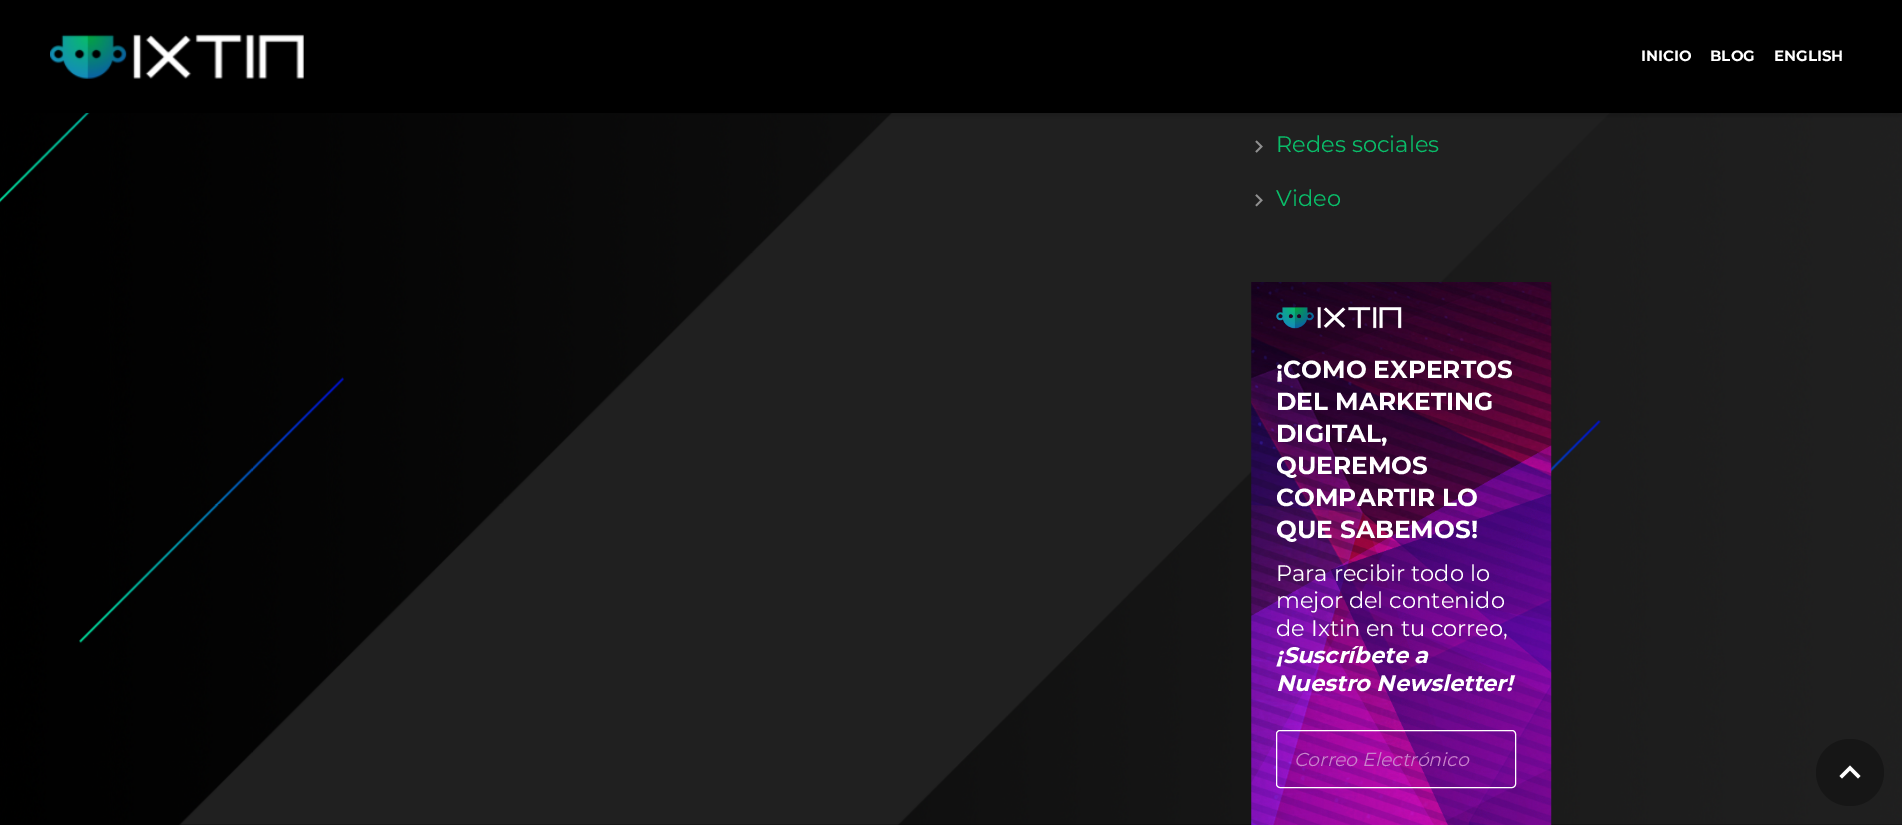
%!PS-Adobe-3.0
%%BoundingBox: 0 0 1902 825
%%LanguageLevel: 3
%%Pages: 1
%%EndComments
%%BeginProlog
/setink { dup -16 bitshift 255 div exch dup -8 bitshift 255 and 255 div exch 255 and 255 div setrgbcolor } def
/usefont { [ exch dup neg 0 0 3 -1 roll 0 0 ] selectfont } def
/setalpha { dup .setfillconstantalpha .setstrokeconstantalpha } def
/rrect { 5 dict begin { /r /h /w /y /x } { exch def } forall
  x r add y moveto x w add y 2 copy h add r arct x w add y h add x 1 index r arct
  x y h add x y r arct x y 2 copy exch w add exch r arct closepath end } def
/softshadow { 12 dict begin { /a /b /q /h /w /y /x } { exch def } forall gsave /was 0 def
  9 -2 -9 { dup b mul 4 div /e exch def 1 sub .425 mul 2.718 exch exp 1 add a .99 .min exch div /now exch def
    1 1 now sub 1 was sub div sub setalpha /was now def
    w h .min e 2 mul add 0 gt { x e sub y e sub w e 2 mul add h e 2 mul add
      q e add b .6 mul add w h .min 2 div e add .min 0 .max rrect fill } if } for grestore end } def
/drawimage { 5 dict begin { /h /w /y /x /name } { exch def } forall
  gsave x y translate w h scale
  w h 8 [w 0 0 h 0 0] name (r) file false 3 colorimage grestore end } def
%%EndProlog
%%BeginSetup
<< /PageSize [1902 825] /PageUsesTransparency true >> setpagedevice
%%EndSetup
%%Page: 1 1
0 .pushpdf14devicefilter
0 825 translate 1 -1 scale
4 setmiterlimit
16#FFFFFF setink
0 0 1902 825 rectfill
(img1.raw) 0 113 1902 712 drawimage
16#000000 setink
1 4 1900 110 0 0.5 0.05 softshadow
3 8 1897 107 0 3 0.22 softshadow
0 0 1902 113 rectfill
(img2.raw) 50 34 254 45 drawimage
/Montserrat-Bold 15 usefont
16#FFFFFF setink
[
    [(INICIO) 1641 61]
    [(BLOG) 1710 61]
    [(ENGLISH) 1774 61]
] { aload pop moveto show } forall
(img3.raw) 1255 140 8 13 drawimage
/Montserrat-Regular 22.5 usefont
16#09BD69 setink
1276 152 moveto (Redes sociales) show
(img4.raw) 1255 194 8 13 drawimage
1276 206 moveto (Video) show
(img5.raw) 1251 282 301 543 drawimage
(img6.raw) 1276 307 126 22 drawimage
/Montserrat-Bold 24.75 usefont
16#FFFFFF setink
[
    [(¡COMO EXPERTOS) 1276 378]
    [(DEL MARKETING) 1276 410]
    [(DIGITAL,) 1276 442]
    [(QUEREMOS) 1276 474]
    [(COMPARTIR LO) 1276 506]
    [(QUE SABEMOS!) 1276 538]
] { aload pop moveto show } forall
/Montserrat-Regular 22.5 usefont
[
    [(Para recibir todo lo) 1276 581]
    [(mejor del contenido) 1276 608]
    [(de Ixtin en tu correo,) 1276 636]
] { aload pop moveto show } forall
/Montserrat-BoldItalic 22.5 usefont
1276 663 moveto (¡Suscríbete a) show
1276 691 moveto (Nuestro Newsletter!) show
1276.5 730.5 239 57 3.5 rrect stroke
/Montserrat-Italic 18.75 usefont
16#C884CC setink
1294 766 moveto (Correo Electrónico) show
16#161616 setink
1816 739 68 67 33.5 rrect fill
16#FFFFFF setink
1850 765.5 moveto 1839.5 776 lineto 1842 778.5 lineto 1850 770.5 lineto 1858 778.5 lineto 1860.5 776 lineto closepath fill
.poppdf14devicefilter showpage
%%EOF
